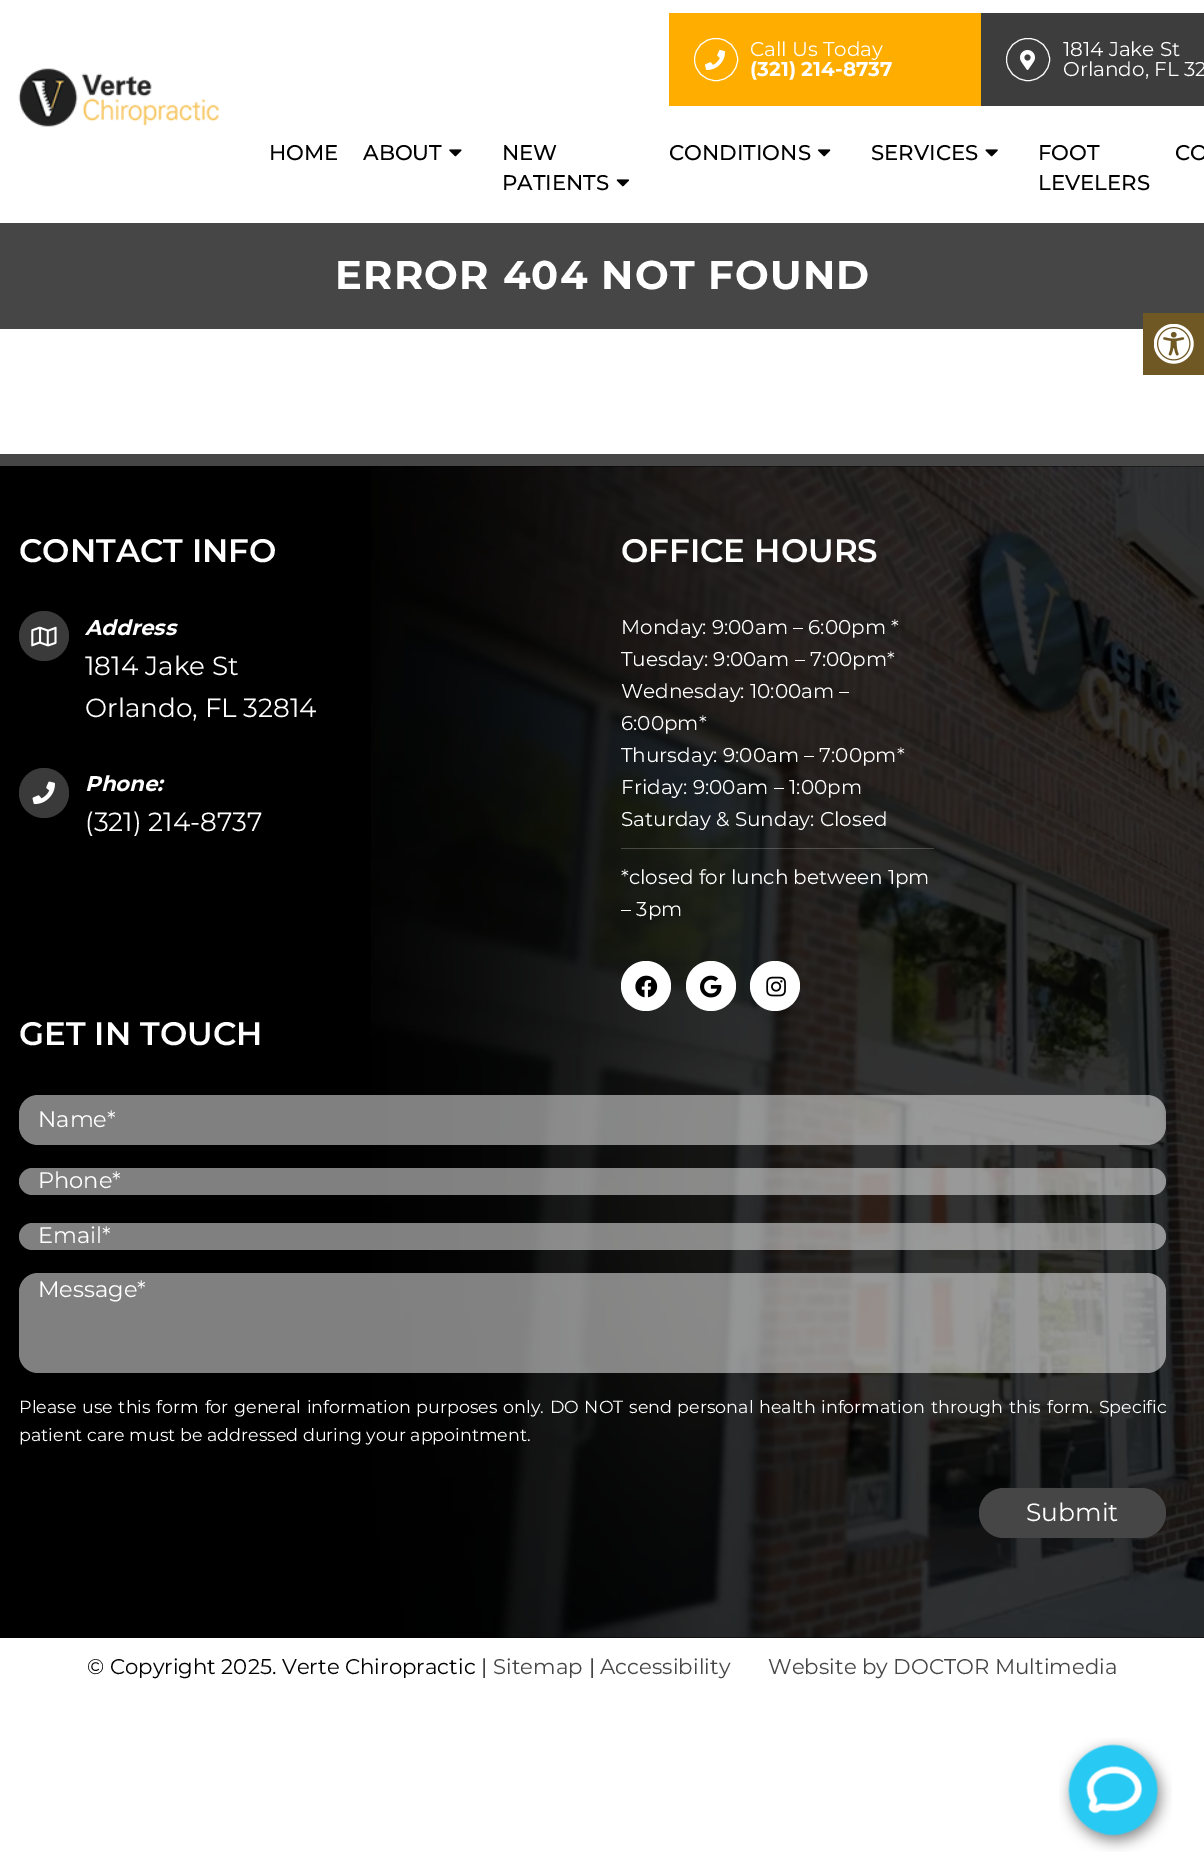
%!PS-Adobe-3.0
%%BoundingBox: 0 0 1204 1870
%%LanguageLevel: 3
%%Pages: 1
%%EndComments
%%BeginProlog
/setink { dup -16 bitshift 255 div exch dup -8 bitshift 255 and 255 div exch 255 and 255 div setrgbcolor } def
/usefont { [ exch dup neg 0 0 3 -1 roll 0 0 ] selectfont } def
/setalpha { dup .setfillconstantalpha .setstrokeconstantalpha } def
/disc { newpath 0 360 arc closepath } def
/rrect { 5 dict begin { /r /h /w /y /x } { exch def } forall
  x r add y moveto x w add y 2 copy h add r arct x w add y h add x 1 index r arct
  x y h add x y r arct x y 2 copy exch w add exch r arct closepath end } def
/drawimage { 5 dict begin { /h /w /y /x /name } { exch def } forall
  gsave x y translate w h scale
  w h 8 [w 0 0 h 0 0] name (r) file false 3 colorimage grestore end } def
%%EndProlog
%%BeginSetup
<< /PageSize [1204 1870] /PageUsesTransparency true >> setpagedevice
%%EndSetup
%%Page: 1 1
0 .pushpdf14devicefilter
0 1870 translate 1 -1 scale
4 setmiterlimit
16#FFFFFF setink
0 0 1204 1870 rectfill
(img1.raw) 18 68 201 59 drawimage
16#FFAE00 setink
669 13 312 93 rectfill
16#FFFFFF setink
694.5 38.5 43 42 21 rrect stroke
(img2.raw) 705 50 20 20 drawimage
/Montserrat-Regular 20 usefont
750 56 moveto (Call Us Today) show
/Montserrat-Bold 20 usefont
750 76 moveto (\(321\) 214-8737) show
16#3D3D3D setink
981 13 223 93 rectfill
16#FFFFFF setink
1006.5 38.5 43 42 21 rrect stroke
(img3.raw) 1020 50 15 20 drawimage
/Montserrat-Regular 20 usefont
1063 56 moveto (1814 Jake St) show
1063 76 moveto (Orlando, FL 32) show
/Montserrat-Medium 21.25 usefont
16#000000 setink
269 160 moveto (HOME) show
363 160 moveto (ABOUT) show
(img4.raw) 449 149 13 8 drawimage
502 160 moveto (NEW) show
502 190 moveto (PATIENTS) show
(img5.raw) 616 179 13 8 drawimage
669 160 moveto (CONDITIONS) show
(img6.raw) 818 149 13 8 drawimage
871 160 moveto (SERVICES) show
(img7.raw) 985 149 13 8 drawimage
[
    [(FOOT) 1038 160]
    [(LEVELERS) 1038 190]
    [(CO) 1175 160]
] { aload pop moveto show } forall
16#464646 setink
0 223 1204 106 rectfill
/Montserrat-Bold 40 usefont
16#FFFFFF setink
335 289 moveto 1.25 0 (ERROR 404 NOT FOUND) ashow
16#464646 setink
0 454 1204 12 rectfill
16#000000 setink
0 466 1204 1172 rectfill
(img8.raw) 371 466 833 1172 drawimage
/Montserrat-SemiBold 32.5 usefont
16#FFFFFF setink
19 562 moveto (CONTACT INFO) show
16#3A3A3A setink
44 636 25 disc fill
(img9.raw) 31 626 26 21 drawimage
/Montserrat-BoldItalic 21.25 usefont
16#FFFFFF setink
85 635 moveto (Address) show
/Montserrat-Regular 26.25 usefont
85 675 moveto (1814 Jake St) show
85 717 moveto (Orlando, FL 32814) show
16#3A3A3A setink
44 793 25 disc fill
(img10.raw) 32 781 23 24 drawimage
/Montserrat-BoldItalic 21.25 usefont
16#FFFFFF setink
85 791 moveto (Phone:) show
/Montserrat-Regular 26.25 usefont
85 831 moveto (\(321\) 214-8737) show
/Montserrat-SemiBold 32.5 usefont
621 562 moveto (OFFICE HOURS) show
0.21 setalpha
621 848 313 1 rectfill
/Montserrat-Regular 20 usefont
1 setalpha
[
    [(Monday: 9:00am – 6:00pm *) 621 634]
    [(Tuesday: 9:00am – 7:00pm*) 621 666]
    [(Wednesday: 10:00am –) 621 698]
    [(6:00pm*) 621 730]
    [(Thursday: 9:00am – 7:00pm*) 621 762]
    [(Friday: 9:00am – 1:00pm) 621 794]
    [(Saturday & Sunday: Closed) 621 826]
    [(*closed for lunch between 1pm) 621 884]
    [(– 3pm) 621 916]
] { aload pop moveto show } forall
646 986 25 disc fill
(img11.raw) 635 975 23 23 drawimage
711 986 25 disc fill
(img12.raw) 700 975 22 23 drawimage
775 986 25 disc fill
(img13.raw) 766 976 20 21 drawimage
/Montserrat-SemiBold 32.5 usefont
19 1045 moveto (GET IN TOUCH) show
0.5 setalpha
19 1095 1147 50 19 rrect fill
/Montserrat-Regular 22.5 usefont
1 setalpha
38 1127 moveto (Name*) show
0.5 setalpha
19 1168 1147 27 13.5 rrect fill
1 setalpha
38 1188 moveto (Phone*) show
0.5 setalpha
19 1223 1147 27 13.5 rrect fill
1 setalpha
38 1243 moveto (Email*) show
0.5 setalpha
19 1273 1147 100 19 rrect fill
1 setalpha
38 1297 moveto (Message*) show
/Montserrat-Regular 17.5 usefont
19 1413 moveto 1.1 0 32 (Please use this form for general information purposes only. DO NOT send personal health information through this form. Specific) widthshow
19 1441 moveto (patient care must be addressed during your appointment.) show
16#464646 setink
979 1488 187 50 25 rrect fill
/Montserrat-Regular 25 usefont
16#FFFFFF setink
1026 1521 moveto (Submit) show
/Montserrat-Regular 21.25 usefont
16#000000 setink
87 1674 moveto (© Copyright 2025. Verte Chiropractic |) show
16#464646 setink
493 1674 moveto (Sitemap) show
16#000000 setink
589 1674 moveto (|) show
16#464646 setink
600 1674 moveto (Accessibility) show
768 1674 moveto (Website by DOCTOR Multimedia) show
16#705824 setink
1143 313 61 62 rectfill
(img14.raw) 1154 324 40 40 drawimage
(img15.raw) 1059 1738 113 114 drawimage
.poppdf14devicefilter showpage
%%EOF
